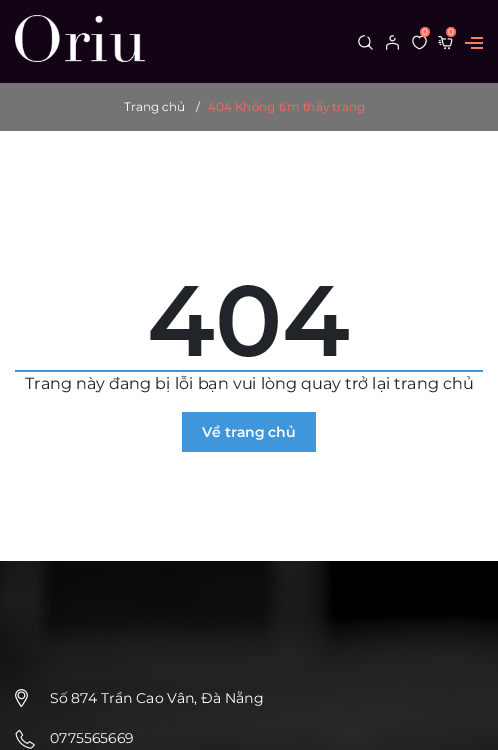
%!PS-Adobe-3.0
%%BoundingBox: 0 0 498 750
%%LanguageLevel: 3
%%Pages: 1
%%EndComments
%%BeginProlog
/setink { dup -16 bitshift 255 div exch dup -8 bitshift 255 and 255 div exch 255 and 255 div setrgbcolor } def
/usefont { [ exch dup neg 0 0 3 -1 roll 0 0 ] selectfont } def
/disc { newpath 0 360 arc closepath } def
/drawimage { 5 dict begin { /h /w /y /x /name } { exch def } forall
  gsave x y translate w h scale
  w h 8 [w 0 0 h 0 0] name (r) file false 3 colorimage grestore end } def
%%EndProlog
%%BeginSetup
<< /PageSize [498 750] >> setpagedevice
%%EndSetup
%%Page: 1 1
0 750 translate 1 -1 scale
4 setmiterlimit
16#FFFFFF setink
0 0 498 750 rectfill
16#120414 setink
0 0 498 83 rectfill
(img1.raw) 15 15 130 47 drawimage
(img2.raw) 412 35 15 15 drawimage
16#FE6B5E setink
425 32 5 disc fill
/Montserrat-Regular 9 usefont
16#FFFFFF setink
422 35 moveto (0) show
(img3.raw) 438 36 15 14 drawimage
16#FE6B5E setink
451 32 5 disc fill
16#FFFFFF setink
448 35 moveto (0) show
(img4.raw) 358 35 15 15 drawimage
(img5.raw) 386 35 13 15 drawimage
[
    [471 37 12 2 16#F97E6C]
    [465 42 18 2 16#F97E6C]
    [471 47 12 2 16#F97E6C]
    [0 83 498 48 16#747474]
] { aload pop setink rectfill } forall
/Montserrat-Regular 12 usefont
16#FFFFFF setink
124 111 moveto (Trang chủ) show
196 111 moveto (/) show
16#FE6B5E setink
208 111 moveto (404 Không tìm thấy trang) show
16#3F96DB setink
15 370 468 2 rectfill
/Montserrat-SemiBold 100 usefont
16#212529 setink
147 356 moveto (404) show
/Montserrat-Regular 16 usefont
25 389 moveto (Trang này đang bị lỗi bạn vui lòng quay trở lại trang chủ) show
16#3F96DB setink
182 412 134 40 rectfill
/Montserrat-SemiBold 14 usefont
16#FFFFFF setink
202 437 moveto (Về trang chủ) show
16#000000 setink
0 561 498 189 rectfill
(img6.raw) 0 561 498 189 drawimage
(img7.raw) 15 689 13 18 drawimage
/Montserrat-Regular 14 usefont
16#FFFFFF setink
50 703 moveto (Số 874 Trần Cao Vân, Đà Nẵng) show
(img8.raw) 15 729 20 20 drawimage
50 743 moveto (0775565669) show
showpage
%%EOF
